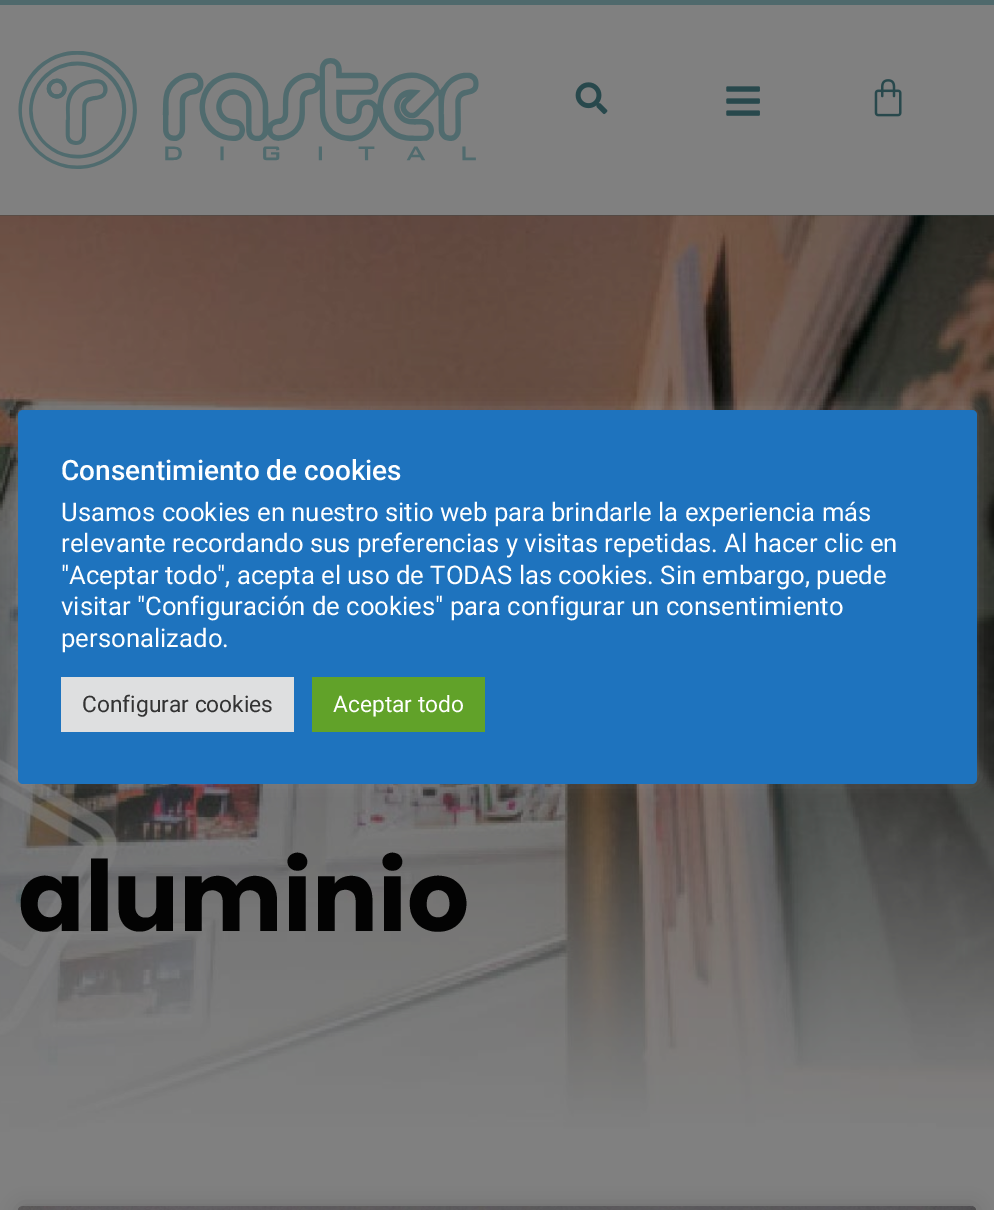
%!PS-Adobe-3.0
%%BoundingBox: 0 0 994 1210
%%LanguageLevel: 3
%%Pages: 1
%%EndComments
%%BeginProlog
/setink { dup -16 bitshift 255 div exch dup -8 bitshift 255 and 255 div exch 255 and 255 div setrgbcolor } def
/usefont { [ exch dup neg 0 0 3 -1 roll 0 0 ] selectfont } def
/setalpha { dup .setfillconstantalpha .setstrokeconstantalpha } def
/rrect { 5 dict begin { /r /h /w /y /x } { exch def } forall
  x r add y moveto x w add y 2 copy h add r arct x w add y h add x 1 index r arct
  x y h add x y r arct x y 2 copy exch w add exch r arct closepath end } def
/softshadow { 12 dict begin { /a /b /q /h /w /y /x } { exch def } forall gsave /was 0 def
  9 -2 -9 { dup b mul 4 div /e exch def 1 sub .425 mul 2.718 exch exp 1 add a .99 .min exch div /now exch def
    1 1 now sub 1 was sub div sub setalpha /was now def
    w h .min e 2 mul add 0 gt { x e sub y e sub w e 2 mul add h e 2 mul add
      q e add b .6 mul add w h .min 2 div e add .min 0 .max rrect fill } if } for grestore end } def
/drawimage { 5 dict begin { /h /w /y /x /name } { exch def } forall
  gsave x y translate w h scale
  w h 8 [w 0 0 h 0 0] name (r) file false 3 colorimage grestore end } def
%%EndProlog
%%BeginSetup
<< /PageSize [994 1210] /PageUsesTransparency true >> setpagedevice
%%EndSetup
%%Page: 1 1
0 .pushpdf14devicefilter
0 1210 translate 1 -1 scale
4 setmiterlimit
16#808080 setink
0 0 994 1210 rectfill
(img5.raw) 0 215 994 917 drawimage
16#ACABAB setink
18 408 959 374 5 9 0.3 softshadow
16#1E73BE setink
18 410 959 374 5 rrect fill
/Roboto-Medium 28 usefont
16#FFFFFF setink
61 480 moveto (Consentimiento de cookies) show
/Roboto-Regular 25.7 usefont
[
    [(Usamos cookies en nuestro sitio web para brindarle la experiencia más) 61 521]
    [(relevante recordando sus preferencias y visitas repetidas. Al hacer clic en) 61 552]
    [("Aceptar todo", acepta el uso de TODAS las cookies. Sin embargo, puede) 61 584]
    [(visitar "Configuración de cookies" para configurar un consentimiento) 61 615]
    [(personalizado.) 61 647]
] { aload pop moveto show } forall
16#DEDFE0 setink
61 677 233 55 rectfill
/Roboto-Regular 22.75 usefont
16#333333 setink
82 712 moveto (Configurar cookies) show
16#61A229 setink
312 677 173 55 rectfill
16#FFFFFF setink
333 712 moveto (Aceptar todo) show
16#4F696C setink
0 0 994 5 rectfill
(img1.raw) 18 51 461 118 drawimage
(img2.raw) 575 82 33 33 drawimage
(img3.raw) 726 86 34 30 drawimage
(img4.raw) 874 79 28 38 drawimage
/Poppins-Bold 98 usefont
16#030303 setink
18 931 moveto (aluminio) show
16#000000 setink
18 1206 959 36 5 9 0.15 softshadow
16#808080 setink
18 1206 959 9 5 rrect fill
(img6.raw) 18 1206 959 4 drawimage
.poppdf14devicefilter showpage
%%EOF
